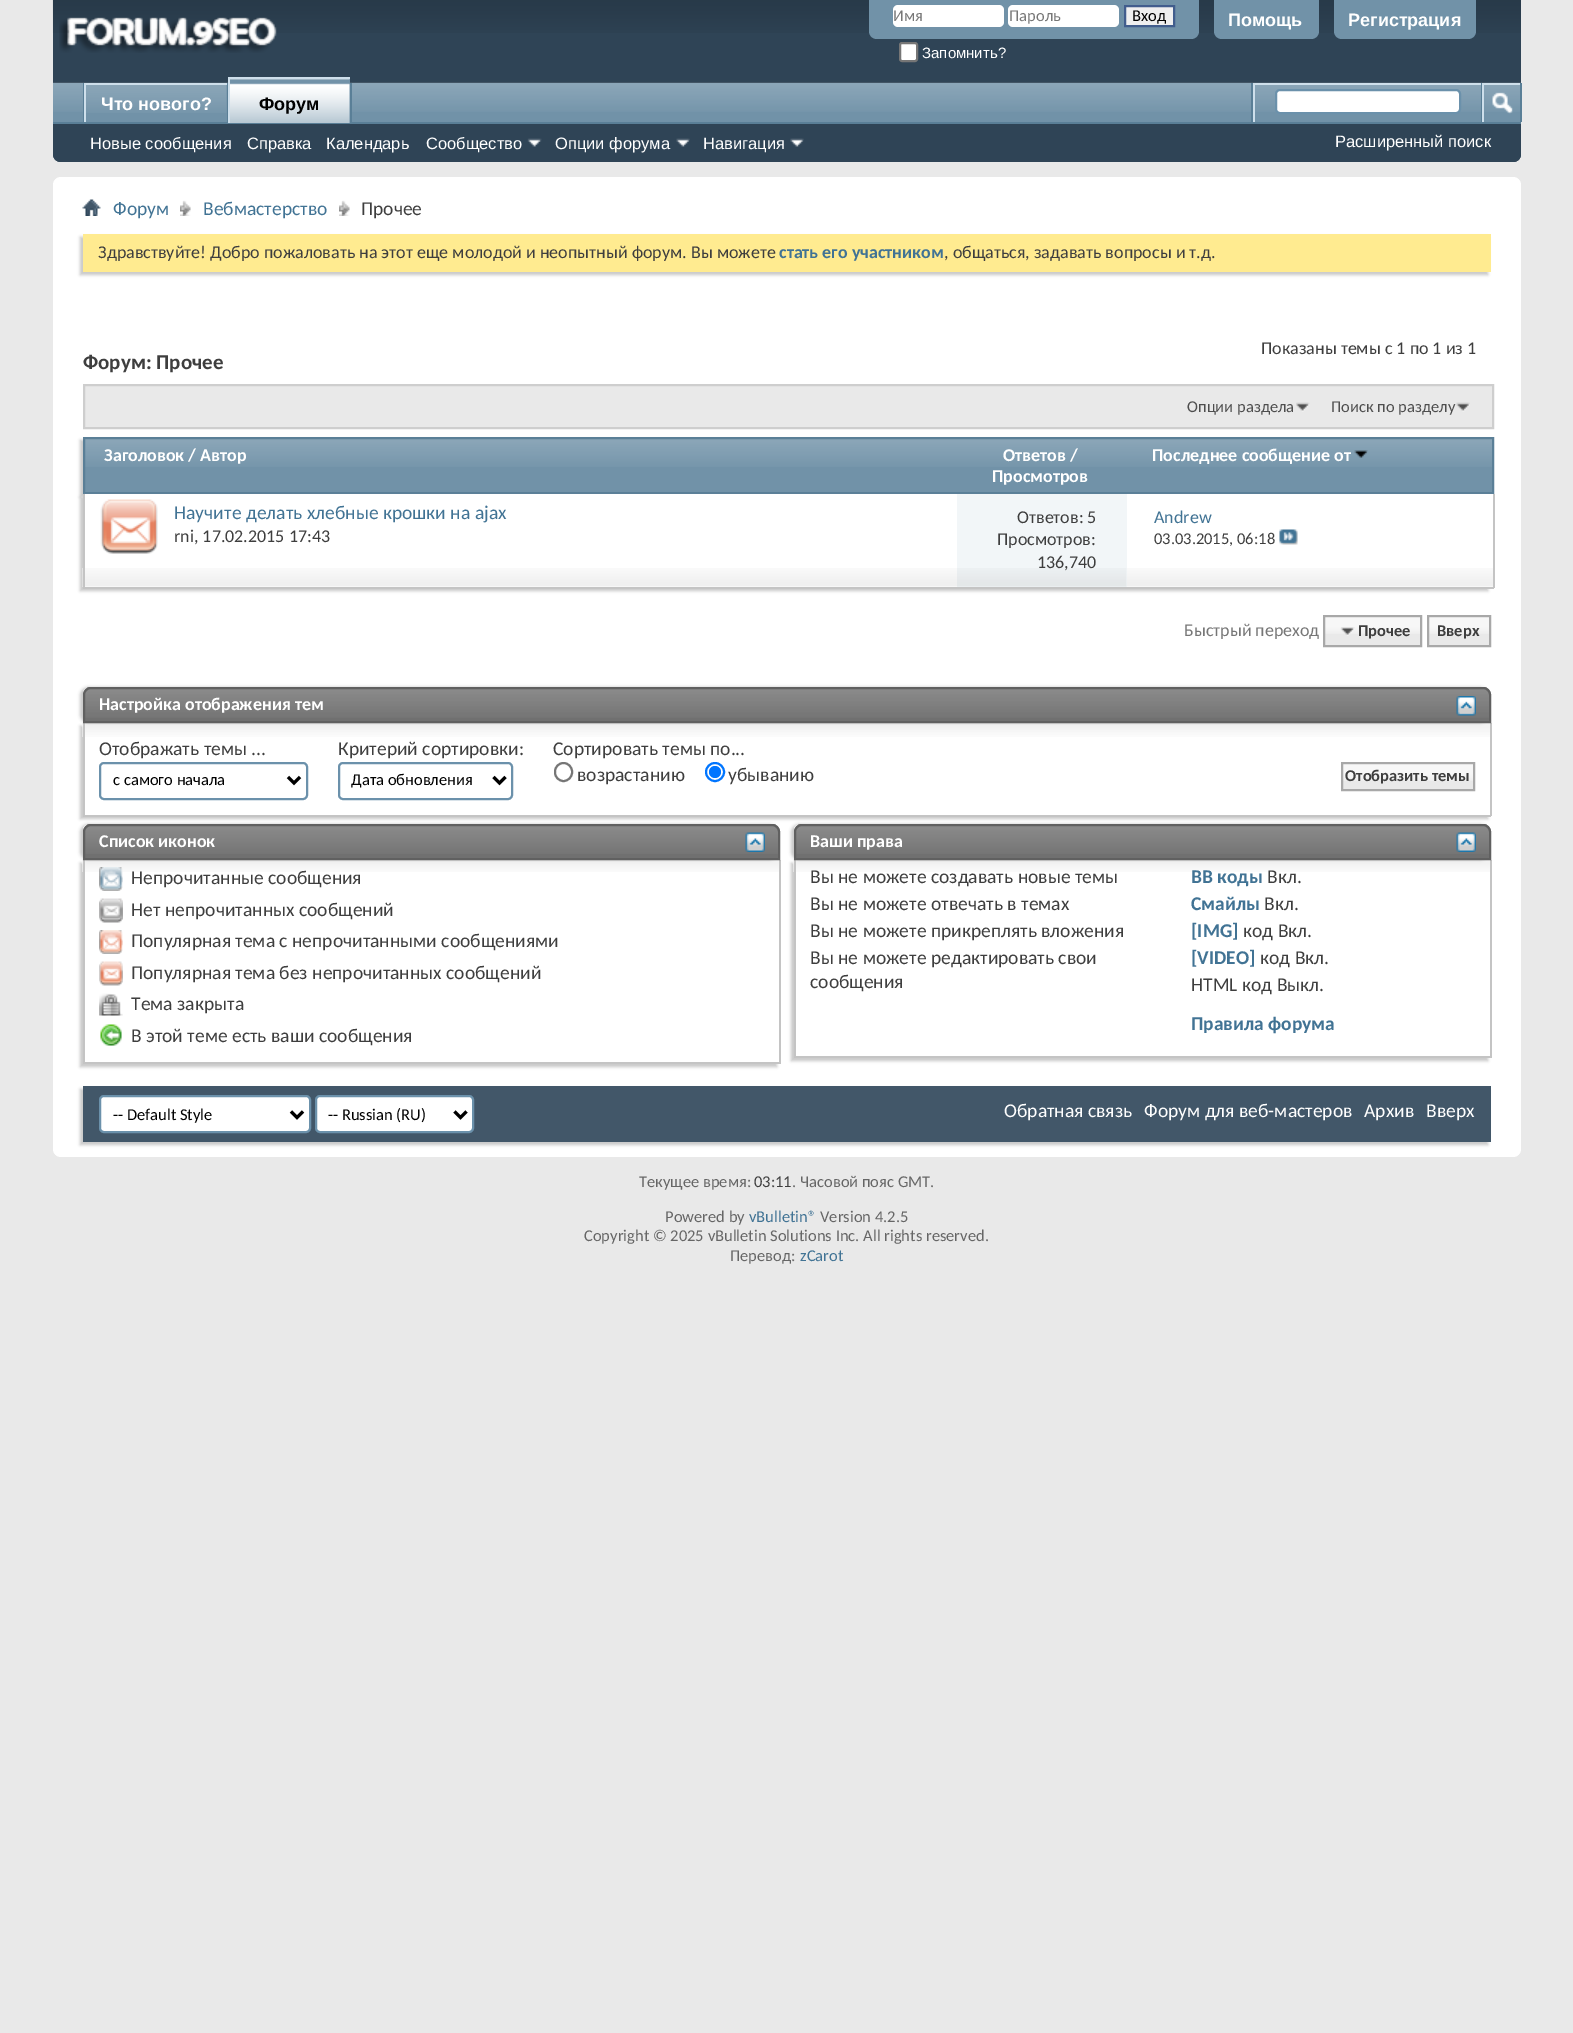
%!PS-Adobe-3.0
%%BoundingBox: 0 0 1573 2033
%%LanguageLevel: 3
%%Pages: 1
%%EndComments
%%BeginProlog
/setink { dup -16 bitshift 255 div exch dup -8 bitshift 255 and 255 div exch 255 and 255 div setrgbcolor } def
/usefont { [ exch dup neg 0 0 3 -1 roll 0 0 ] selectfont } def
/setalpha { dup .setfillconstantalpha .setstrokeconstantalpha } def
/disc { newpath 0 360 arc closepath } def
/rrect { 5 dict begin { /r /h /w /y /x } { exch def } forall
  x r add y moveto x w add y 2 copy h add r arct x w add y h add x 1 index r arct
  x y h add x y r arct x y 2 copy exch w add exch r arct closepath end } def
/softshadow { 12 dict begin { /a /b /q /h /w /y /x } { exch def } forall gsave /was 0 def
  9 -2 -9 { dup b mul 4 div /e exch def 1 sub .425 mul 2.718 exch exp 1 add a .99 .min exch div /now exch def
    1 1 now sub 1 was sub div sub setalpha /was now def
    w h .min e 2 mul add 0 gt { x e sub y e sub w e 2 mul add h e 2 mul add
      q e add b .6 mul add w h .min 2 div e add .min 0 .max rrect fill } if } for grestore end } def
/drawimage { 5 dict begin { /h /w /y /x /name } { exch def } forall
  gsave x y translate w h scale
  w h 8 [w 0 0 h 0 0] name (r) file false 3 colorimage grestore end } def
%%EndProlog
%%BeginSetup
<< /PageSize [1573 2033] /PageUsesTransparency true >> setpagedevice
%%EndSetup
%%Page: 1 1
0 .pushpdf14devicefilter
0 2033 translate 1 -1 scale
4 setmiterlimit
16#E9E9E9 setink
0 0 1573 2033 rectfill
16#2F4456 setink
53 0 moveto 1521 0 lineto 1521 154 lineto 1521 158.5 1517.5 162 1513 162 curveto 61 162 lineto 56.5 162 53 158.5 53 154 curveto closepath fill
(img1.raw) 52 0 1469 33 drawimage
(img2.raw) 59 17 218 36 drawimage
16#7192A8 setink
869 0 moveto 1199 0 lineto 1199 31 lineto 1199 35.5 1195.5 39 1191 39 curveto 877 39 lineto 872.5 39 869 35.5 869 31 curveto closepath fill
16#FFFFFF setink
893 5 111 22 5 rrect fill
/Carlito-Regular 16.5 usefont
16#777777 setink
893 21 moveto (Имя) show
16#FFFFFF setink
1008 5 111 22 5 rrect fill
16#777777 setink
1009 21 moveto (Пароль) show
16#EFEFEF setink
1125 6 moveto 1174 6 lineto 1174 26 lineto 1125 26 lineto closepath gsave fill grestore
16#415D8D setink
2 setlinewidth
stroke
16#000000 setink
1132 21 moveto (Вход) show
16#FFFFFF setink
900 43 17 18 2 rrect gsave fill grestore
16#767676 setink
stroke
/LiberationSans-Regular 15 usefont
16#FFFFFF setink
922 58 moveto (Запомнить?) show
16#7192A8 setink
1214 0 moveto 1319 0 lineto 1319 31 lineto 1319 35.5 1315.5 39 1311 39 curveto 1222 39 lineto 1217.5 39 1214 35.5 1214 31 curveto closepath fill
/LiberationSans-Bold 18 usefont
16#FFFFFF setink
1228 26 moveto (Помощь) show
16#7192A8 setink
1334 0 moveto 1476 0 lineto 1476 31 lineto 1476 35.5 1472.5 39 1468 39 curveto 1342 39 lineto 1337.5 39 1334 35.5 1334 31 curveto closepath fill
16#FFFFFF setink
1348 26 moveto (Регистрация) show
16#2F4456 setink
53 83 moveto 1521 83 lineto 1521 154 lineto 1521 158.5 1517.5 162 1513 162 curveto 61 162 lineto 56.5 162 53 158.5 53 154 curveto closepath fill
16#7192A8 setink
53 83 1467 39 rectfill
(img3.raw) 53 82 1468 30 drawimage
[
    [227 83 1 40 16#5A7F97]
    [83 83 1 40 16#5A7F97]
    [86 85 141 27 16#7192A8]
] { aload pop setink rectfill } forall
(img4.raw) 86 85 141 28 drawimage
16#CEDFEB setink
84 83 143 2 rectfill
84 83 2 40 rectfill
16#FFFFFF setink
101 110 moveto (Что нового?) show
[
    [350 83 2 39 16#5A7F97]
    [53 122 1468 2 16#5A7F97]
    [230 79 120 44 16#7192A8]
] { aload pop setink rectfill } forall
(img5.raw) 230 79 120 44 drawimage
16#CEDFEB setink
228 77 122 2 rectfill
228 77 2 46 rectfill
16#000000 setink
259 110 moveto (Форум) show
/LiberationSans-Regular 16.5 usefont
16#FFFFFF setink
[
    [(Новые сообщения) 90 149]
    [(Справка) 247 149]
    [(Календарь) 326 149]
    [(Сообщество) 426 149]
] { aload pop moveto show } forall
(img6.raw) 527 138 15 9 drawimage
555 149 moveto (Опции форума) show
(img7.raw) 676 138 14 9 drawimage
703 149 moveto (Навигация) show
(img8.raw) 790 138 14 9 drawimage
[
    [1251 83 2 39 16#5A7F97]
    [1253 83 228 2 16#CEDFEB]
    [1253 83 2 39 16#CEDFEB]
] { aload pop setink rectfill } forall
16#FFFFFF setink
1276 90 184 23 4 rrect gsave fill grestore
16#6B91AB setink
stroke
[
    [1520 83 2 39 16#5A7F97]
    [1481 83 1 39 16#5A7F97]
    [1482 83 38 2 16#CEDFEB]
    [1482 83 2 39 16#CEDFEB]
] { aload pop setink rectfill } forall
(img9.raw) 1492 92 21 22 drawimage
16#FFFFFF setink
1335 147 moveto (Расширенный поиск) show
53 177 1468 980 8 rrect fill
(img10.raw) 82 199 19 17 drawimage
(img11.raw) 180 200 11 16 drawimage
/Carlito-Regular 19.5 usefont
16#417394 setink
113 215 moveto (Форум) show
(img12.raw) 339 200 11 16 drawimage
203 215 moveto (Вебмастерство) show
16#3E3E3E setink
361 215 moveto (Прочее) show
16#C8C8C8 setink
80 237 1408 38 0 1.5 1 softshadow
16#FFEB90 setink
83 234 1408 38 rectfill
/Carlito-Regular 18 usefont
16#3E3E3E setink
98 258 moveto (Здравствуйте! Добро пожаловать на этот еще молодой и неопытный форум. Вы можете) show
/Carlito-Bold 18 usefont
16#417394 setink
779 258 moveto (стать его участником) show
/Carlito-Regular 18 usefont
16#3E3E3E setink
944 258 moveto (, общаться, задавать вопросы и т.д.) show
1261 354 moveto (Показаны темы с 1 по 1 из 1) show
/Carlito-Bold 21 usefont
83 369 moveto (Форум: Прочее) show
16#E9E9E9 setink
84 385 moveto 1493 385 lineto 1493 428 lineto 84 428 lineto closepath gsave fill grestore
16#CECECE setink
stroke
(img13.raw) 1296 402 14 10 drawimage
/Carlito-Regular 16.5 usefont
16#4E4E4E setink
1187 412 moveto (Опции раздела) show
(img14.raw) 1456 402 14 10 drawimage
1331 412 moveto (Поиск по разделу) show
16#C8C8C8 setink
80 440 1411 57 0 1.5 1 softshadow
16#7192A8 setink
85 439 1407 53 rectfill
(img15.raw) 85 439 1407 28 drawimage
16#5A7F97 setink
84 438 1409 55 rectstroke
/Carlito-Bold 18 usefont
16#FFFFFF setink
[
    [(Заголовок / Автор) 104 461]
    [(Ответов /) 1003 461]
    [(Просмотров) 992 482]
    [(Последнее сообщение от) 1152 461]
] { aload pop moveto show } forall
(img16.raw) 1354 450 14 8 drawimage
16#C8C8C8 setink
80 497 1408 94 0 1.5 1 softshadow
16#FFFFFF setink
85 494 1408 93 rectfill
(img17.raw) 82 568 1411 19 drawimage
[
    [1493 494 2 94 16#C4C4C4]
    [83 587 1411 2 16#C4C4C4]
    [83 494 2 94 16#C4C4C4]
] { aload pop setink rectfill } forall
(img18.raw) 100 499 58 55 drawimage
/Carlito-Regular 19.5 usefont
16#417394 setink
174 519 moveto (Научите делать хлебные крошки на ajax) show
/Carlito-Regular 18 usefont
16#3E3E3E setink
174 542 moveto (rni, 17.02.2015 17:43) show
16#F2F6F8 setink
957 494 170 93 rectfill
(img19.raw) 957 568 170 19 drawimage
16#3E3E3E setink
[
    [(Ответов: 5) 1017 523]
    [(Просмотров:) 997 545]
    [(136,740) 1037 568]
] { aload pop moveto show } forall
16#417394 setink
1154 523 moveto (Andrew) show
/Carlito-Regular 16.5 usefont
16#3E3E3E setink
1154 544 moveto (03.03.2015, 06:18) show
(img20.raw) 1279 529 19 16 drawimage
/Carlito-Regular 18 usefont
16#777777 setink
1184 636 moveto (Быстрый переход) show
16#E9E9E9 setink
1325 617 95 28 rectfill
(img21.raw) 1325 617 95 17 drawimage
1429 617 60 28 rectfill
(img22.raw) 1429 617 60 17 drawimage
16#A8A8A8 setink
1324 616 97 30 rectstroke
(img23.raw) 1340 627 15 9 drawimage
/Carlito-Bold 16.5 usefont
16#3E3E3E setink
1358 636 moveto (Прочее) show
16#A8A8A8 setink
1428 616 62 30 rectstroke
16#3E3E3E setink
1437 636 moveto (Вверх) show
gsave
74 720 moveto 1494 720 lineto 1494 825 lineto 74 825 lineto closepath 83 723 moveto 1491 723 lineto 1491 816 lineto 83 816 lineto closepath eoclip newpath
16#C8C8C8 setink
80 726 1408 93 0 1.5 1 softshadow
grestore
(img26.raw) 82 723 1408 14 drawimage
[
    [1490 723 2 93 16#C4C4C4]
    [83 815 1408 2 16#C4C4C4]
    [83 723 2 93 16#C4C4C4]
] { aload pop setink rectfill } forall
16#C8C8C8 setink
80 687 1408 36 8 1.5 1 softshadow
16#707070 setink
91 687 moveto 1483 687 lineto 1487.5 687 1491 690.5 1491 695 curveto 1491 723 lineto 83 723 lineto 83 695 lineto 83 690.5 86.5 687 91 687 curveto closepath fill
(img24.raw) 83 688 1408 30 drawimage
16#606060 setink
91 688 moveto 1483 688 lineto 1487 688 1490 691 1490 695 curveto 1490 722 lineto 84 722 lineto 84 695 lineto 84 691 87 688 91 688 curveto closepath stroke
/Carlito-Bold 18 usefont
16#FFFFFF setink
99 710 moveto (Настройка отображения тем) show
(img25.raw) 1456 696 20 20 drawimage
/Carlito-Regular 19.5 usefont
16#3E3E3E setink
99 755 moveto (Отображать темы ...) show
16#6B91AB setink
100 763 207 36 4 rrect stroke
16#000000 setink
3 setlinewidth
288 777 moveto 294 783 lineto 300 777 lineto stroke
/Carlito-Regular 16.5 usefont
113 785 moveto (с самого начала) show
/Carlito-Regular 19.5 usefont
16#3E3E3E setink
338 755 moveto (Критерий сортировки:) show
16#6B91AB setink
2 setlinewidth
339 763 173 36 4 rrect stroke
16#000000 setink
3 setlinewidth
493.5 777 moveto 499.5 783 lineto 505.5 777 lineto stroke
/Carlito-Regular 16.5 usefont
351 785 moveto (Дата обновления) show
/Carlito-Regular 19.5 usefont
16#3E3E3E setink
553 755 moveto (Сортировать темы по...) show
16#767676 setink
2 setlinewidth
555 763 17 18 8.5 rrect stroke
16#3E3E3E setink
577 781 moveto (возрастанию) show
16#0075FF setink
715 772 9 disc stroke
715 772 6 disc fill
16#3E3E3E setink
728 781 moveto (убыванию) show
16#E9E9E9 setink
1343 764 130 25 rectfill
(img27.raw) 1343 764 130 17 drawimage
16#A8A8A8 setink
1342 763 132 27 rectstroke
/Carlito-Bold 16.5 usefont
16#3E3E3E setink
1345 781 moveto (Отобразить темы) show
16#C8C8C8 setink
80 863 697 204 0 1.5 1 softshadow
16#FFFFFF setink
85 861 694 201 rectfill
(img30.raw) 82 859 697 13 drawimage
[
    [779 860 2 204 16#C4C4C4]
    [83 1062 697 2 16#C4C4C4]
    [83 860 2 204 16#C4C4C4]
] { aload pop setink rectfill } forall
16#C8C8C8 setink
80 824 697 36 8 1.5 1 softshadow
16#707070 setink
91 824 moveto 772 824 lineto 776.5 824 780 827.5 780 832 curveto 780 860 lineto 83 860 lineto 83 832 lineto 83 827.5 86.5 824 91 824 curveto closepath fill
(img28.raw) 83 825 697 29 drawimage
16#606060 setink
91 825 moveto 772 825 lineto 776 825 779 828 779 832 curveto 779 859 lineto 84 859 lineto 84 832 lineto 84 828 87 825 91 825 curveto closepath stroke
/Carlito-Bold 18 usefont
16#FFFFFF setink
99 847 moveto (Список иконок) show
(img29.raw) 745 832 20 20 drawimage
(img31.raw) 99 867 24 24 drawimage
/Carlito-Regular 19.5 usefont
16#3E3E3E setink
131 884 moveto (Непрочитанные сообщения) show
(img32.raw) 99 898 24 25 drawimage
131 916 moveto (Нет непрочитанных сообщений) show
(img33.raw) 99 930 24 24 drawimage
131 947 moveto (Популярная тема с непрочитанными сообщениями) show
(img34.raw) 99 961 24 25 drawimage
131 979 moveto (Популярная тема без непрочитанных сообщений) show
(img35.raw) 99 993 24 23 drawimage
131 1010 moveto (Тема закрыта) show
(img36.raw) 100 1024 22 22 drawimage
131 1042 moveto (В этой теме есть ваши сообщения) show
16#C8C8C8 setink
791 863 697 198 0 1.5 1 softshadow
16#FFFFFF setink
796 861 694 195 rectfill
(img30.raw) 793 859 697 13 drawimage
[
    [1490 860 2 198 16#C4C4C4]
    [794 1056 697 2 16#C4C4C4]
    [794 860 2 198 16#C4C4C4]
] { aload pop setink rectfill } forall
16#C8C8C8 setink
791 824 697 36 8 1.5 1 softshadow
16#707070 setink
802 824 moveto 1483 824 lineto 1487.5 824 1491 827.5 1491 832 curveto 1491 860 lineto 794 860 lineto 794 832 lineto 794 827.5 797.5 824 802 824 curveto closepath fill
(img28.raw) 794 825 697 29 drawimage
16#606060 setink
802 825 moveto 1483 825 lineto 1487 825 1490 828 1490 832 curveto 1490 859 lineto 795 859 lineto 795 832 lineto 795 828 798 825 802 825 curveto closepath stroke
/Carlito-Bold 18 usefont
16#FFFFFF setink
810 847 moveto (Ваши права) show
(img29.raw) 1456 832 20 20 drawimage
/Carlito-Regular 19.5 usefont
16#3E3E3E setink
[
    [(Вы не можете создавать новые темы) 810 883]
    [(Вы не можете отвечать в темах) 810 910]
    [(Вы не можете прикреплять вложения) 810 937]
    [(Вы не можете редактировать свои) 810 964]
    [(сообщения) 810 988]
] { aload pop moveto show } forall
/Carlito-Bold 19.5 usefont
16#417394 setink
1191 883 moveto (BB коды) show
/Carlito-Regular 19.5 usefont
16#3E3E3E setink
1267 883 moveto (Вкл.) show
/Carlito-Bold 19.5 usefont
16#417394 setink
1191 910 moveto (Смайлы) show
/Carlito-Regular 19.5 usefont
16#3E3E3E setink
1264 910 moveto (Вкл.) show
/Carlito-Bold 19.5 usefont
16#417394 setink
1191 937 moveto ([IMG]) show
/Carlito-Regular 19.5 usefont
16#3E3E3E setink
1243 937 moveto (код Вкл.) show
/Carlito-Bold 19.5 usefont
16#417394 setink
1191 964 moveto ([VIDEO]) show
/Carlito-Regular 19.5 usefont
16#3E3E3E setink
1260 964 moveto (код Вкл.) show
1191 991 moveto (HTML код Выкл.) show
/Carlito-Bold 19.5 usefont
16#417394 setink
1191 1030 moveto (Правила форума) show
16#C8C8C8 setink
80 1089 1408 56 0 1.5 1 softshadow
16#425769 setink
83 1086 1408 56 rectfill
16#FFFFFF setink
100 1096 210 36 4 rrect gsave fill grestore
16#6B91AB setink
stroke
16#000000 setink
3 setlinewidth
291 1111.5 moveto 297 1117.5 lineto 303 1111.5 lineto stroke
/Carlito-Regular 16.5 usefont
113 1120 moveto (-- Default Style) show
16#FFFFFF setink
316 1096 157 36 4 rrect gsave fill grestore
16#6B91AB setink
2 setlinewidth
stroke
16#000000 setink
3 setlinewidth
454.5 1111.5 moveto 460.5 1117.5 lineto 466.5 1111.5 lineto stroke
328 1120 moveto (-- Russian \(RU\)) show
/Carlito-Regular 19.5 usefont
16#FFFFFF setink
[
    [(Обратная связь) 1004 1117]
    [(Форум для веб-мастеров) 1144 1117]
    [(Архив) 1364 1117]
    [(Вверх) 1426 1117]
] { aload pop moveto show } forall
/Carlito-Regular 16.5 usefont
16#666666 setink
639 1187 moveto (Текущее время:) show
16#3E3E3E setink
754 1187 moveto (03:11) show
16#666666 setink
792 1187 moveto (. Часовой пояс GMT.) show
665 1222 moveto (Powered by) show
16#417394 setink
749 1222 moveto (vBulletin®) show
16#666666 setink
[
    [(Version 4.2.5) 820 1222]
    [(Copyright © 2025 vBulletin Solutions Inc. All rights reserved.) 584 1241]
    [(Перевод:) 730 1261]
] { aload pop moveto show } forall
16#417394 setink
800 1261 moveto (zCarot) show
.poppdf14devicefilter showpage
%%EOF
